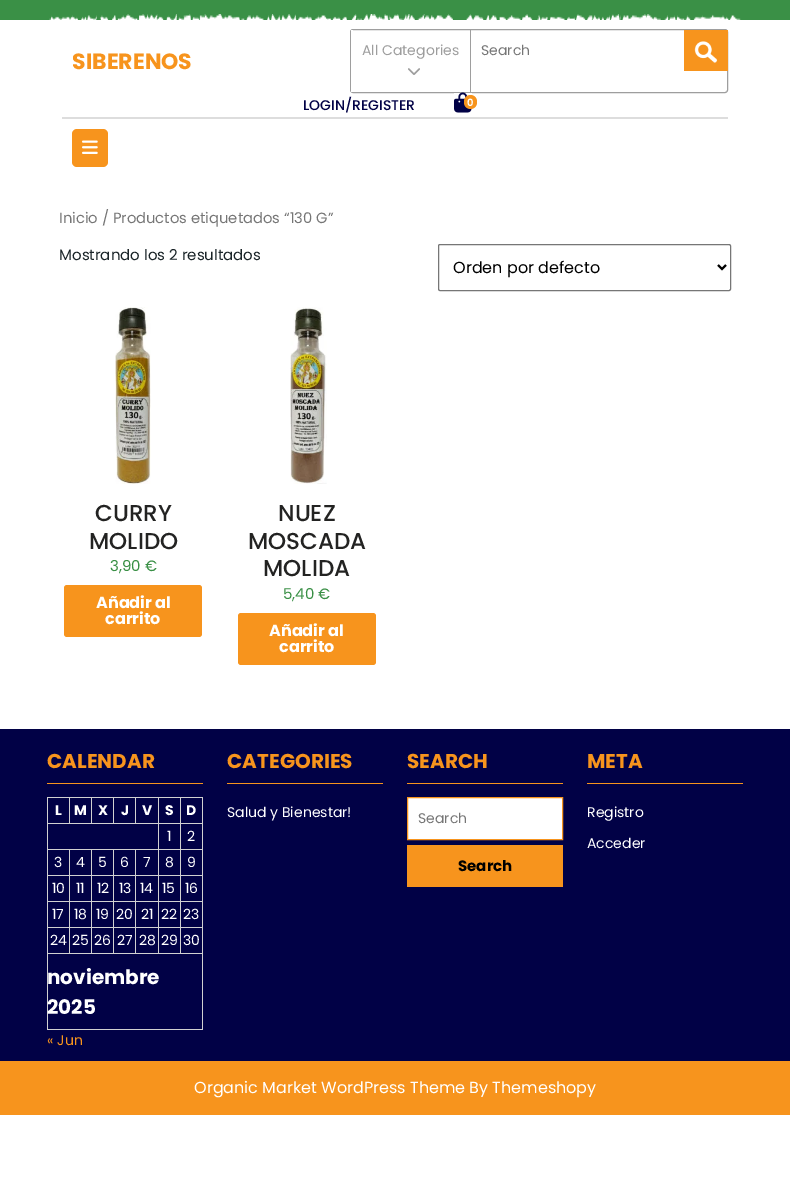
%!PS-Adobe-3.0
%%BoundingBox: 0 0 790 1188
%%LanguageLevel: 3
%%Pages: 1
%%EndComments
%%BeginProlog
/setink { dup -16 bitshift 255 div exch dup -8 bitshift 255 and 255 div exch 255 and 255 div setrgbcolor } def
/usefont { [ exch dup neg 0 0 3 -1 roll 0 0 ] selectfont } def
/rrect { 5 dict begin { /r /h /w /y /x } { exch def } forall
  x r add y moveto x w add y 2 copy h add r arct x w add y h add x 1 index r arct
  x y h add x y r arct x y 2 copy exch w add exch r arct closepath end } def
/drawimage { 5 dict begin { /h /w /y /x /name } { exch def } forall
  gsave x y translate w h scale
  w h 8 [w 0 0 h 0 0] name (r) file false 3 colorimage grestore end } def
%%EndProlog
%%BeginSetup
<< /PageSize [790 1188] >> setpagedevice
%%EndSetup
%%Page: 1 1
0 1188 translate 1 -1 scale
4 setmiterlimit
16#FFFFFF setink
0 0 790 1188 rectfill
16#3A9046 setink
0 0 790 20 rectfill
(img1.raw) 49 14 692 6 drawimage
16#9E9E9E setink
350.5 29.5 377 63 2.5 rrect stroke
16#FFFFFF setink
351 30 2 62 rectfill
16#9E9E9E setink
470 30 1 62 rectfill
/Poppins-Regular 14 usefont
362 55 moveto (All Categories) show
(img2.raw) 408 68 12 7 drawimage
16#767676 setink
481 55 moveto (Search) show
16#F7941D setink
684 30 44 41 rectfill
(img3.raw) 694 41 24 22 drawimage
/Poppins-Bold 22 usefont
72 69 moveto (SIBERENOS) show
/Poppins-Medium 14 usefont
16#010146 setink
303 110 moveto (LOGIN/REGISTER) show
(img4.raw) 454 92 18 21 drawimage
16#F7941D setink
464 95 13 14 6.5 rrect fill
/Poppins-SemiBold 10 usefont
16#FFFFFF setink
467 106 moveto (0) show
16#DDDDDD setink
62 117 666 2 rectfill
16#F7941D setink
72 129 36 38 5 rrect fill
(img5.raw) 82 140 16 14 drawimage
/Poppins-Regular 14.75 usefont
16#767676 setink
59 223 moveto (Inicio / Productos etiquetados “130 G”) show
/Poppins-Regular 15 usefont
16#1A2428 setink
59 260 moveto (Mostrando los 2 resultados) show
16#767676 setink
438.5 244.5 292 46 1.5 rrect stroke
16#000000 setink
2 setlinewidth
718 265 moveto 722 269 lineto 726 265 lineto stroke
/Poppins-Regular 16 usefont
453 273 moveto (Orden por defecto) show
(img6.raw) 115 307 36 177 drawimage
/Poppins-Medium 23 usefont
16#232322 setink
95 521 moveto (CURRY) show
89 549 moveto (MOLIDO) show
/Poppins-Regular 15 usefont
16#3A9046 setink
110 571 moveto (3,90 €) show
16#F7941D setink
64 585 138 52 3 rrect fill
/Poppins-Bold 16 usefont
16#FFFFFF setink
96 608 moveto (Añadir al) show
105 624 moveto (carrito) show
(img7.raw) 290 307 37 177 drawimage
/Poppins-Medium 23 usefont
16#232322 setink
[
    [(NUEZ) 278 521]
    [(MOSCADA) 248 549]
    [(MOLIDA) 263 576]
] { aload pop moveto show } forall
/Poppins-Regular 15 usefont
16#3A9046 setink
283 599 moveto (5,40 €) show
16#F7941D setink
238 613 138 52 3 rrect fill
/Poppins-Bold 16 usefont
16#FFFFFF setink
269 636 moveto (Añadir al) show
279 652 moveto (carrito) show
16#010146 setink
0 729 790 332 rectfill
16#F7941D setink
47 783 156 1 rectfill
/Poppins-Bold 20 usefont
47 768 moveto (CALENDAR) show
[
    [47 797 156 1 16#D1D1D1]
    [202 797 1 233 16#D1D1D1]
    [47 1029 156 1 16#D1D1D1]
    [47 797 1 233 16#D1D1D1]
] { aload pop setink rectfill } forall
/Poppins-Bold 14 usefont
16#FFFFFF setink
55 815 moveto (L) show
[
    [180 823 23 1 16#D1D1D1]
    [180 849 23 1 16#D1D1D1]
    [180 875 23 1 16#D1D1D1]
    [180 901 23 1 16#D1D1D1]
    [180 927 23 1 16#D1D1D1]
    [180 953 23 1 16#D1D1D1]
    [180 927 1 27 16#D1D1D1]
    [158 927 23 1 16#D1D1D1]
    [180 901 1 27 16#D1D1D1]
    [158 901 23 1 16#D1D1D1]
    [180 875 1 27 16#D1D1D1]
    [158 875 23 1 16#D1D1D1]
    [180 849 1 27 16#D1D1D1]
    [158 849 23 1 16#D1D1D1]
    [180 823 1 27 16#D1D1D1]
    [158 823 23 1 16#D1D1D1]
    [158 953 23 1 16#D1D1D1]
    [158 927 1 27 16#D1D1D1]
    [135 927 24 1 16#D1D1D1]
    [158 901 1 27 16#D1D1D1]
    [135 901 24 1 16#D1D1D1]
    [158 875 1 27 16#D1D1D1]
    [135 875 24 1 16#D1D1D1]
    [158 849 1 27 16#D1D1D1]
    [135 849 24 1 16#D1D1D1]
    [158 823 1 27 16#D1D1D1]
    [47 823 112 1 16#D1D1D1]
    [69 797 1 27 16#D1D1D1]
] { aload pop setink rectfill } forall
16#FFFFFF setink
74 815 moveto (M) show
16#D1D1D1 setink
91 797 1 27 rectfill
16#FFFFFF setink
98 815 moveto (X) show
16#D1D1D1 setink
113 797 1 27 rectfill
16#FFFFFF setink
121 815 moveto (J) show
16#D1D1D1 setink
135 797 1 27 rectfill
16#FFFFFF setink
142 815 moveto (V) show
16#D1D1D1 setink
158 797 1 27 rectfill
16#FFFFFF setink
165 815 moveto (S) show
16#D1D1D1 setink
180 797 1 27 rectfill
16#FFFFFF setink
186 815 moveto (D) show
/Poppins-Regular 14 usefont
167 841 moveto (1) show
187 841 moveto (2) show
[
    [135 953 24 1 16#D1D1D1]
    [135 927 1 27 16#D1D1D1]
    [113 927 23 1 16#D1D1D1]
    [135 901 1 27 16#D1D1D1]
    [113 901 23 1 16#D1D1D1]
    [135 875 1 27 16#D1D1D1]
    [113 875 23 1 16#D1D1D1]
    [135 849 1 27 16#D1D1D1]
    [113 849 23 1 16#D1D1D1]
    [113 953 23 1 16#D1D1D1]
    [113 927 1 27 16#D1D1D1]
    [91 927 23 1 16#D1D1D1]
    [113 901 1 27 16#D1D1D1]
    [91 901 23 1 16#D1D1D1]
    [113 875 1 27 16#D1D1D1]
    [91 875 23 1 16#D1D1D1]
    [113 849 1 27 16#D1D1D1]
    [91 849 23 1 16#D1D1D1]
    [91 953 23 1 16#D1D1D1]
    [91 927 1 27 16#D1D1D1]
    [69 927 23 1 16#D1D1D1]
    [91 901 1 27 16#D1D1D1]
    [69 901 23 1 16#D1D1D1]
    [91 875 1 27 16#D1D1D1]
    [69 875 23 1 16#D1D1D1]
    [91 849 1 27 16#D1D1D1]
    [69 849 23 1 16#D1D1D1]
    [69 953 23 1 16#D1D1D1]
    [69 927 1 27 16#D1D1D1]
    [47 927 23 1 16#D1D1D1]
    [69 901 1 27 16#D1D1D1]
    [47 901 23 1 16#D1D1D1]
    [69 875 1 27 16#D1D1D1]
    [47 875 23 1 16#D1D1D1]
    [69 849 1 27 16#D1D1D1]
    [47 849 23 1 16#D1D1D1]
] { aload pop setink rectfill } forall
16#FFFFFF setink
[
    [(3) 54 867]
    [(4) 76 867]
    [(5) 98 867]
    [(6) 120 867]
    [(7) 143 867]
    [(8) 165 867]
    [(9) 187 867]
    [(10) 52 893]
    [(11) 76 893]
    [(12) 97 893]
    [(13) 119 893]
    [(14) 140 893]
    [(15) 162 893]
    [(16) 185 893]
    [(17) 52 919]
    [(18) 74 919]
    [(19) 96 919]
    [(20) 116 919]
    [(21) 141 919]
    [(22) 161 919]
    [(23) 183 919]
] { aload pop moveto show } forall
16#D1D1D1 setink
47 953 23 1 rectfill
16#FFFFFF setink
[
    [(24) 50 945]
    [(25) 72 945]
    [(26) 94 945]
    [(27) 117 945]
    [(28) 139 945]
    [(29) 161 945]
    [(30) 183 945]
] { aload pop moveto show } forall
/Poppins-Bold 20 usefont
47 984 moveto (noviembre) show
47 1014 moveto (2025) show
/Poppins-Regular 14 usefont
16#F7941D setink
47 1045 moveto (« Jun) show
227 783 156 1 rectfill
/Poppins-Bold 20 usefont
227 768 moveto (CATEGORIES) show
/Poppins-Regular 14 usefont
16#FFFFFF setink
227 817 moveto (Salud y Bienestar!) show
16#F7941D setink
407 783 156 1 rectfill
/Poppins-Bold 20 usefont
407 768 moveto (SEARCH) show
16#FFFFFF setink
407.5 797.5 moveto 562.5 797.5 lineto 562.5 839.5 lineto 407.5 839.5 lineto closepath gsave fill grestore
16#F7941D setink
1 setlinewidth
stroke
/Poppins-Regular 14 usefont
16#767676 setink
418 823 moveto (Search) show
16#F7941D setink
407 845 156 42 rectfill
/Poppins-Bold 15 usefont
16#000000 setink
458 871 moveto (Search) show
16#F7941D setink
587 783 156 1 rectfill
/Poppins-Bold 20 usefont
587 768 moveto (META) show
/Poppins-Regular 14 usefont
16#FFFFFF setink
587 817 moveto (Registro) show
587 848 moveto (Acceder) show
16#F7941D setink
0 1061 790 54 rectfill
/Poppins-Regular 16 usefont
16#FFFFFF setink
194 1093 moveto (Organic Market WordPress Theme By Themeshopy) show
showpage
%%EOF
